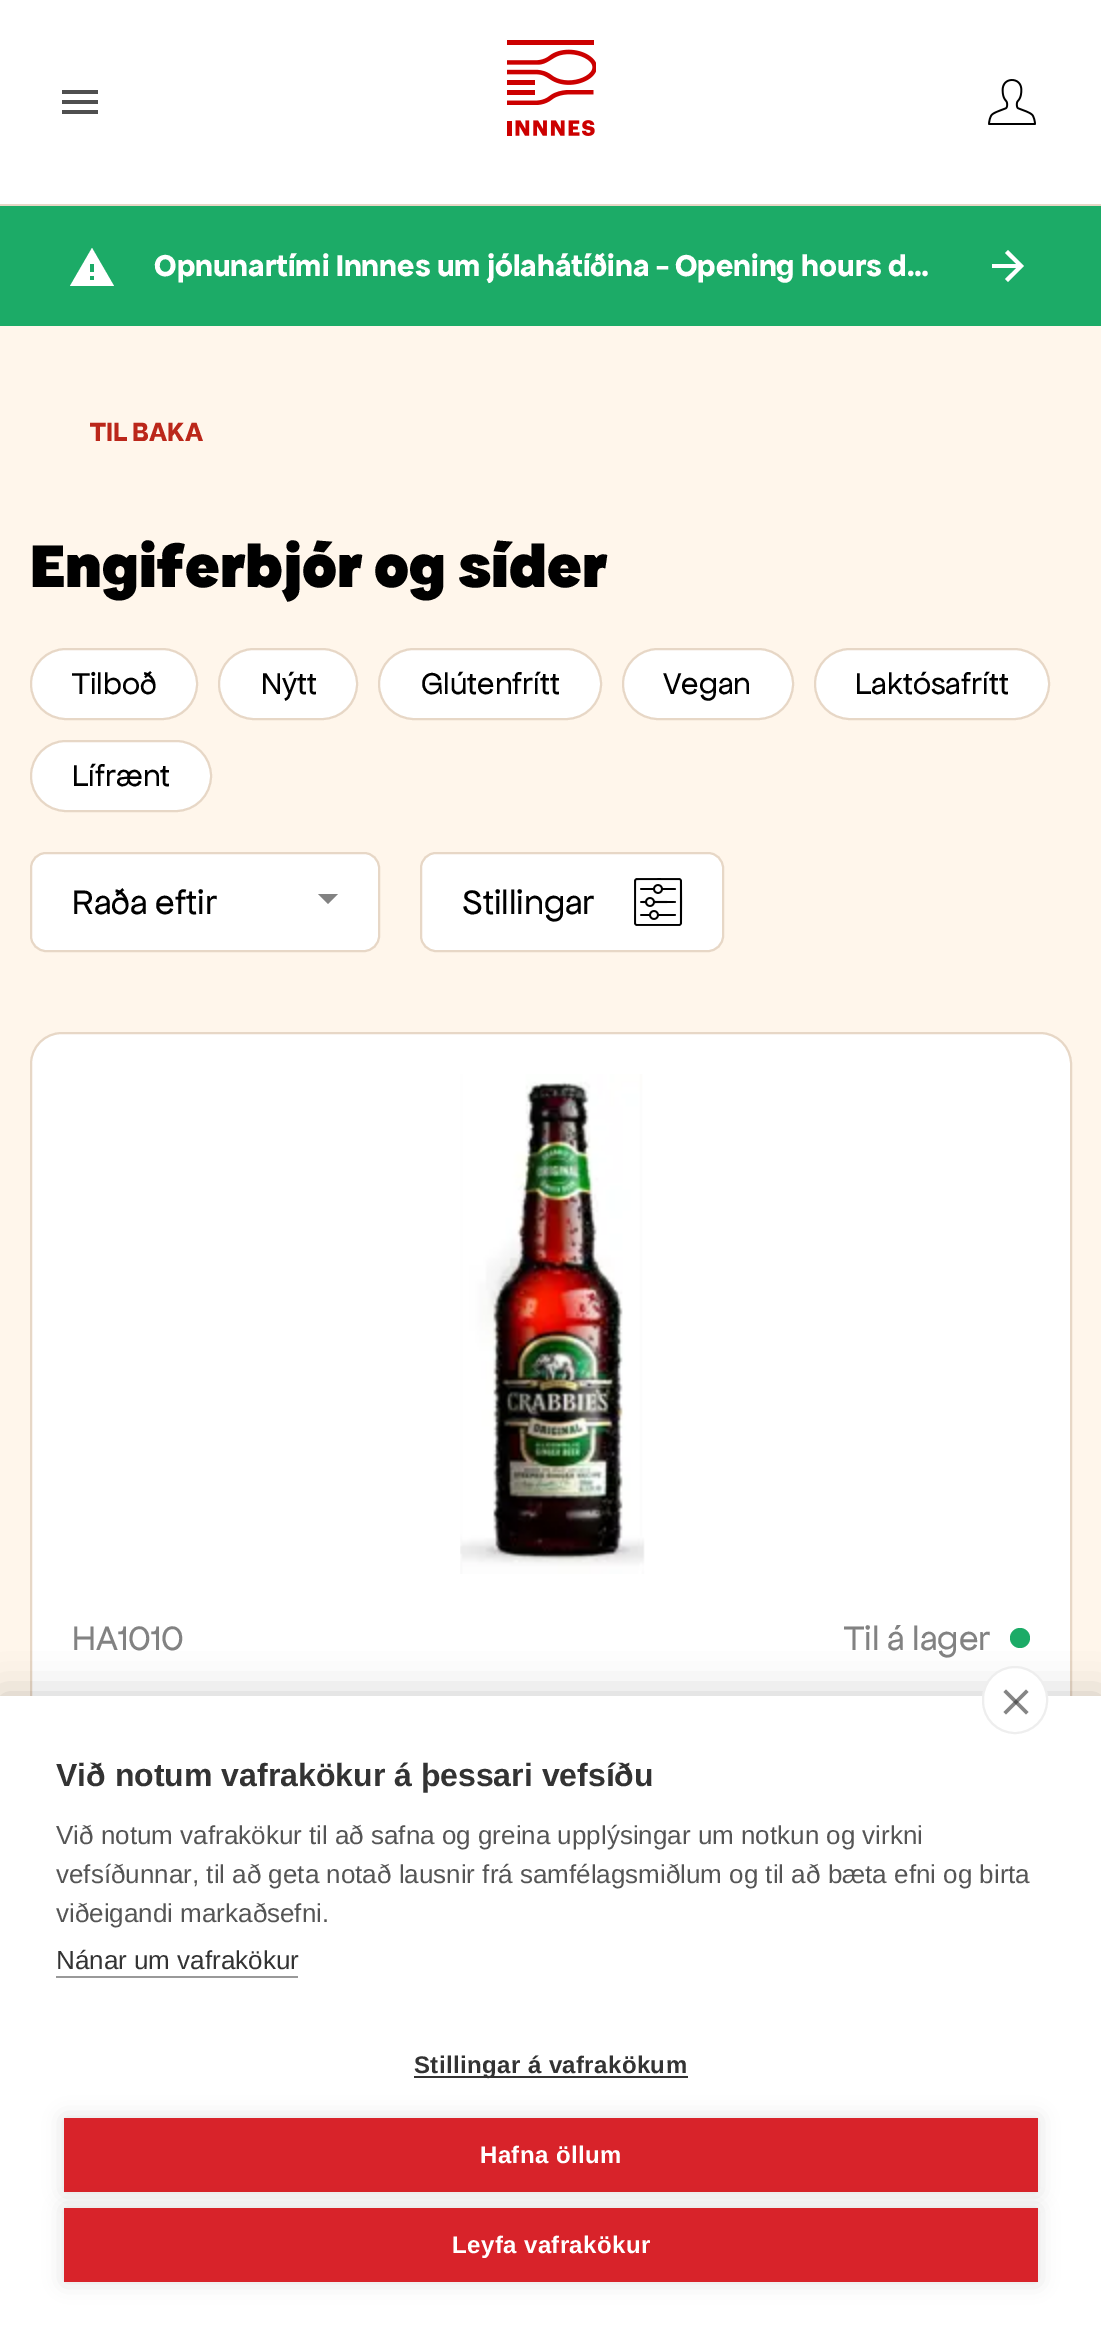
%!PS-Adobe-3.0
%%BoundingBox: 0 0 1101 2338
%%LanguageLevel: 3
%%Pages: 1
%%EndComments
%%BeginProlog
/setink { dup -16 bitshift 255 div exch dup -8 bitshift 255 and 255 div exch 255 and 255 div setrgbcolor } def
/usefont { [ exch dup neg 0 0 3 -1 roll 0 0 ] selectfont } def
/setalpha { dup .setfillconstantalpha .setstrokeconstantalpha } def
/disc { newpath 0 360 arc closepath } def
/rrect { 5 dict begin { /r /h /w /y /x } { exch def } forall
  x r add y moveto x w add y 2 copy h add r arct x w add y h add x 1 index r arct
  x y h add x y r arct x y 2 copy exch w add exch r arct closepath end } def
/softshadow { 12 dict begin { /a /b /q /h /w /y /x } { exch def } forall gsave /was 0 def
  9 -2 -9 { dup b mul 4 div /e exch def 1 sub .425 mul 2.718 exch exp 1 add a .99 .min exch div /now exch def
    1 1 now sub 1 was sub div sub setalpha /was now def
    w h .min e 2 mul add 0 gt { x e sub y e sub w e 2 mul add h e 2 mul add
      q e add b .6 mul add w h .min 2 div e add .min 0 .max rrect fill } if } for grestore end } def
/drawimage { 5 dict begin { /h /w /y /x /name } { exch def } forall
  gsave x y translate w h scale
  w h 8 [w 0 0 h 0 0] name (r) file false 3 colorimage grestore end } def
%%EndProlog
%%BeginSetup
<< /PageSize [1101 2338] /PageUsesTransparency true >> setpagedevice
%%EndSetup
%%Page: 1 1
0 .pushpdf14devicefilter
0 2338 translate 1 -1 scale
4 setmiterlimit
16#FFF6EB setink
0 0 1101 2338 rectfill
[
    [0 0 1101 204 16#FFFFFF]
    [0 204 1101 2 16#E7D7C6]
    [62 90 36 4 16#4F4F4F]
    [62 100 36 4 16#4F4F4F]
    [62 110 36 4 16#4F4F4F]
] { aload pop setink rectfill } forall
(img1.raw) 507 40 89 96 drawimage
(img2.raw) 988 79 48 46 drawimage
16#1CAB67 setink
0 206 1101 120 rectfill
16#FFFFFF setink
114 286 moveto 92 248 lineto 70 286 lineto closepath 90 280 moveto 90 276 lineto 94 276 lineto 94 280 lineto closepath 90 272 moveto 94 272 lineto 94 264 lineto 90 264 lineto closepath eofill
/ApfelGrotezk-Bold 32 usefont
154 276 moveto (Opnunartími Innnes um jólahátíðina - Opening hours d…) show
1008 250 moveto 1005 253 lineto 1016.5 264 lineto 992 264 lineto 992 268 lineto 1016.5 268 lineto 1005 279 lineto 1008 282 lineto 1024 266 lineto closepath fill
/ApfelGrotezk-Bold 28 usefont
16#BB271A setink
90 441 moveto (TIL BAKA) show
/ApfelGrotezk-Black 64 usefont
16#000000 setink
30 587 moveto (Engiferbjór og síder) show
16#FFFFFF setink
31 649 166 70 35 rrect gsave fill grestore
16#E7D7C6 setink
2 setlinewidth
stroke
/ApfelGrotezk-Regular 32 usefont
16#000000 setink
72 694 moveto (Tilboð) show
16#FFFFFF setink
219 649 138 70 35 rrect gsave fill grestore
16#E7D7C6 setink
stroke
16#000000 setink
261 694 moveto (Nýtt) show
16#FFFFFF setink
379 649 222 70 35 rrect gsave fill grestore
16#E7D7C6 setink
stroke
16#000000 setink
421 694 moveto (Glútenfrítt) show
16#FFFFFF setink
623 649 170 70 35 rrect gsave fill grestore
16#E7D7C6 setink
stroke
16#000000 setink
663 694 moveto (Vegan) show
16#FFFFFF setink
815 649 234 70 35 rrect gsave fill grestore
16#E7D7C6 setink
stroke
16#000000 setink
855 694 moveto (Laktósafrítt) show
16#FFFFFF setink
31 741 180 70 35 rrect gsave fill grestore
16#E7D7C6 setink
stroke
16#000000 setink
72 786 moveto (Lífrænt) show
16#FFFFFF setink
31 853 348 98 15 rrect gsave fill grestore
16#E7D7C6 setink
stroke
/ApfelGrotezk-Regular 36 usefont
16#000000 setink
72 914 moveto (Raða eftir) show
16#828282 setink
318 894 moveto 328 904 lineto 338 894 lineto closepath fill
16#FFFFFF setink
421 853 302 98 15 rrect gsave fill grestore
16#E7D7C6 setink
stroke
16#000000 setink
462 914 moveto (Stillingar) show
(img3.raw) 634 878 49 48 drawimage
16#FFFFFF setink
31 1033 1040 828 31 rrect gsave fill grestore
16#E7D7C6 setink
stroke
(img4.raw) 460 1074 185 500 drawimage
16#828282 setink
72 1650 moveto (HA1010) show
844 1650 moveto (Til á lager) show
16#1CAB67 setink
1020 1638 10 disc fill
16#000000 setink
0 1696 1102 642 0 20 0.2 softshadow
16#FFFFFF setink
0 1696 1101 642 rectfill
983 1667 64 66 32 rrect gsave fill grestore
16#EEEEEE setink
stroke
16#858585 setink
1003.5 1712 moveto 1026 1689.5 lineto 1028.5 1692 lineto 1006 1714.5 lineto closepath fill
0.6 setalpha
16#333333 setink
1006 1689.5 moveto 1028.5 1712 lineto 1026 1714.5 lineto 1003.5 1692 lineto closepath fill
/LiberationSans-Bold 32 usefont
1 setalpha
56 1786 moveto (Við notum vafrakökur á þessari vefsíðu) show
/LiberationSans-Regular 26 usefont
16#555555 setink
[
    [(Við notum vafrakökur til að safna og greina upplýsingar um notkun og virkni) 56 1844]
    [(vefsíðunnar, til að geta notað lausnir frá samfélagsmiðlum og til að bæta efni og birta) 56 1883]
    [(viðeigandi markaðsefni.) 56 1922]
] { aload pop moveto show } forall
16#333333 setink
56 1969 moveto (Nánar um vafrakökur) show
16#999999 setink
56 1976 242 2 rectfill
16#333333 setink
414 2076 274 2 rectfill
/LiberationSans-Bold 24 usefont
414 2073 moveto 0.4 0 (Stillingar á vafrakökum) ashow
16#000000 setink
64 2118 974 74 0 10 0.12 softshadow
16#D8232A setink
64 2118 974 74 rectfill
16#FFFFFF setink
480 2163 moveto 0.4 0 (Hafna öllum) ashow
16#000000 setink
64 2208 974 74 0 10 0.12 softshadow
16#D8232A setink
64 2208 974 74 rectfill
16#FFFFFF setink
452 2253 moveto 0.4 0 (Leyfa vafrakökur) ashow
.poppdf14devicefilter showpage
%%EOF
